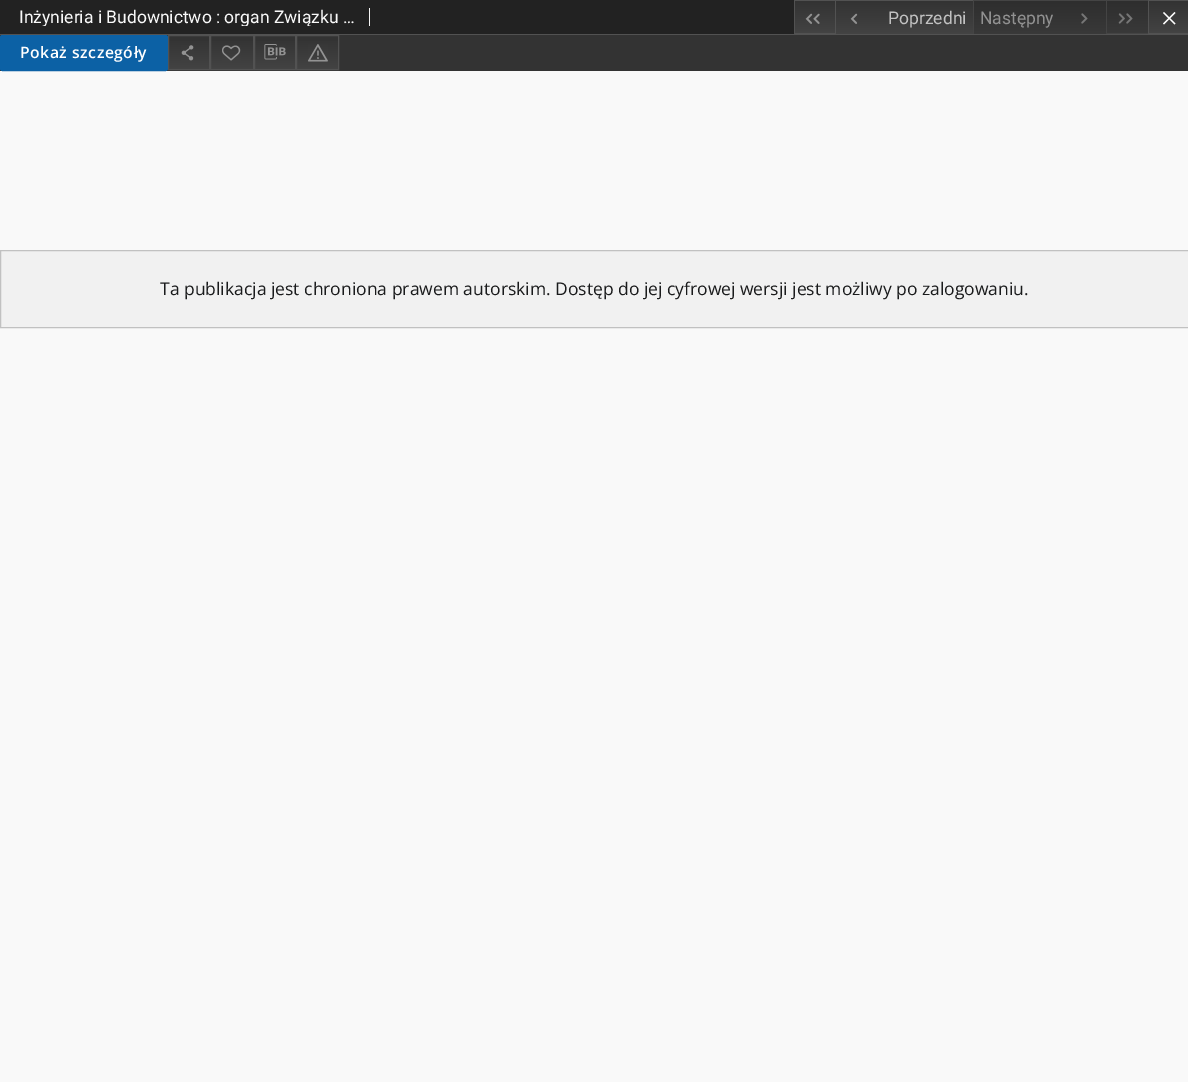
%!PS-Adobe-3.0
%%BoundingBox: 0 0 1188 1082
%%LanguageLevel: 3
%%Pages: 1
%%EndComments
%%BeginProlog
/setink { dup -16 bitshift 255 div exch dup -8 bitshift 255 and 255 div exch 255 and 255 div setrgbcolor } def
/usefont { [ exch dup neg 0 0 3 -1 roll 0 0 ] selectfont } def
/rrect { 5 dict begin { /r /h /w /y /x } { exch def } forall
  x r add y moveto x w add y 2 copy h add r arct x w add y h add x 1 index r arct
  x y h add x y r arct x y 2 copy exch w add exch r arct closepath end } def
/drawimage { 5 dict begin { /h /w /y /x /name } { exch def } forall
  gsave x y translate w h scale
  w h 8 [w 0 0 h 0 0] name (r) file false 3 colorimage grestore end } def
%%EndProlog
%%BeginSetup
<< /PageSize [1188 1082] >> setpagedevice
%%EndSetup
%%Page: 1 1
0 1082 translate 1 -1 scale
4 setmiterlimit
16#F9F9F9 setink
0 0 1188 1082 rectfill
[
    [0 0 794 34 16#222222]
    [0 34 1188 1 16#525252]
    [369 8 1 18 16#F5F5F5]
] { aload pop setink rectfill } forall
gsave
19 8 350 18 rectclip
/Roboto-Regular 17.5 usefont
16#F9F9F9 setink
19 23 moveto (Inżynieria i Budownictwo : organ Związku …) show
grestore
gsave 795 1 moveto 835 1 lineto 835 33 lineto 795 33 lineto closepath clip newpath
<< /ShadingType 2 /ColorSpace /DeviceRGB /Coords [815 1.2 815 33] /Extend [true true] /Function << /FunctionType 2 /Domain [0 1] /C0 [0.2 0.2 0.2] /C1 [0.263 0.263 0.263] /N 1 >> >> shfill grestore
[
    [794 0 179 1 16#525252]
    [794 33 41 1 16#525252]
    [794 0 1 34 16#525252]
] { aload pop setink rectfill } forall
(img1.raw) 805 13 8 11 drawimage
(img2.raw) 813 13 7 11 drawimage
gsave 1107 1 moveto 1148 1 lineto 1148 33 lineto 1107 33 lineto closepath clip newpath
<< /ShadingType 2 /ColorSpace /DeviceRGB /Coords [1128 1.2 1128 33] /Extend [true true] /Function << /FunctionType 2 /Domain [0 1] /C0 [0.18 0.18 0.18] /C1 [0.224 0.224 0.224] /N 1 >> >> shfill grestore
[
    [1106 33 42 1 16#444444]
    [973 0 175 1 16#444444]
    [1106 0 1 34 16#444444]
] { aload pop setink rectfill } forall
(img3.raw) 1118 13 7 11 drawimage
(img4.raw) 1126 13 7 11 drawimage
gsave 1149 1 moveto 1188 1 lineto 1188 33 lineto 1149 33 lineto closepath clip newpath
<< /ShadingType 2 /ColorSpace /DeviceRGB /Coords [1169 1.2 1169 33] /Extend [true true] /Function << /FunctionType 2 /Domain [0 1] /C0 [0.2 0.2 0.2] /C1 [0.263 0.263 0.263] /N 1 >> >> shfill grestore
[
    [1148 0 40 1 16#525252]
    [1148 33 40 1 16#525252]
    [1148 0 1 34 16#525252]
] { aload pop setink rectfill } forall
16#FFFFFF setink
1163 23.5 moveto 1174.5 12 lineto 1175.5 13 lineto 1164 24.5 lineto closepath fill
1164 12 moveto 1175.5 23.5 lineto 1174.5 24.5 lineto 1163 13 lineto closepath fill
gsave 836 1 moveto 973 1 lineto 973 34 lineto 836 34 lineto closepath clip newpath
<< /ShadingType 2 /ColorSpace /DeviceRGB /Coords [904 1.2 904 34] /Extend [true true] /Function << /FunctionType 2 /Domain [0 1] /C0 [0.2 0.2 0.2] /C1 [0.263 0.263 0.263] /N 1 >> >> shfill grestore
16#525252 setink
835 0 1 34 rectfill
(img5.raw) 850 13 8 11 drawimage
/Roboto-Regular 17.5 usefont
16#C1C1C1 setink
888 24 moveto (Poprzedni) show
gsave 974 1 moveto 1106 1 lineto 1106 34 lineto 974 34 lineto closepath clip newpath
<< /ShadingType 2 /ColorSpace /DeviceRGB /Coords [1040 1.2 1040 34] /Extend [true true] /Function << /FunctionType 2 /Domain [0 1] /C0 [0.18 0.18 0.18] /C1 [0.224 0.224 0.224] /N 1 >> >> shfill grestore
16#444444 setink
973 0 1 34 rectfill
16#919191 setink
980 24 moveto (Następny) show
(img6.raw) 1081 13 7 11 drawimage
16#333333 setink
0 35 1188 36 rectfill
16#0C61A5 setink
0.5 35.5 167 35 2 rrect gsave fill grestore
stroke
/OpenSans-SemiBold 15.75 usefont
16#FFFFFF setink
20 58 moveto 0.5 0 (Pokaż szczegóły) ashow
gsave 169 41 moveto 209 41 lineto 209 69 lineto 169 69 lineto closepath clip newpath
<< /ShadingType 2 /ColorSpace /DeviceRGB /Coords [189 36 189 69] /Extend [true true] /Function << /FunctionType 2 /Domain [0 1] /C0 [0.2 0.2 0.2] /C1 [0.263 0.263 0.263] /N 1 >> >> shfill grestore
16#525252 setink
168.5 35.5 41 34 rectstroke
(img7.raw) 181 45 13 16 drawimage
gsave 211 41 moveto 253 41 lineto 253 69 lineto 211 69 lineto closepath clip newpath
<< /ShadingType 2 /ColorSpace /DeviceRGB /Coords [232 36 232 69] /Extend [true true] /Function << /FunctionType 2 /Domain [0 1] /C0 [0.2 0.2 0.2] /C1 [0.263 0.263 0.263] /N 1 >> >> shfill grestore
210.5 35.5 43 34 rectstroke
(img8.raw) 222 45 19 16 drawimage
gsave 255 41 moveto 295 41 lineto 295 69 lineto 255 69 lineto closepath clip newpath
<< /ShadingType 2 /ColorSpace /DeviceRGB /Coords [275 36 275 69] /Extend [true true] /Function << /FunctionType 2 /Domain [0 1] /C0 [0.2 0.2 0.2] /C1 [0.263 0.263 0.263] /N 1 >> >> shfill grestore
254.5 35.5 41 34 rectstroke
(img9.raw) 264 44 22 16 drawimage
gsave 297 41 moveto 338 41 lineto 338 69 lineto 297 69 lineto closepath clip newpath
<< /ShadingType 2 /ColorSpace /DeviceRGB /Coords [318 36 318 69] /Extend [true true] /Function << /FunctionType 2 /Domain [0 1] /C0 [0.2 0.2 0.2] /C1 [0.263 0.263 0.263] /N 1 >> >> shfill grestore
296.5 35.5 42 34 rectstroke
(img10.raw) 308 44 20 18 drawimage
16#F1F1F1 setink
0.5 250.5 moveto 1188.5 250.5 lineto 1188.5 327.5 lineto 0.5 327.5 lineto closepath gsave fill grestore
16#C1C1C1 setink
stroke
/OpenSans-Regular 17.5 usefont
16#1A1B1C setink
160 295 moveto (Ta publikacja jest chroniona prawem autorskim. Dostęp do jej cyfrowej wersji jest możliwy po zalogowaniu.) show
showpage
%%EOF
